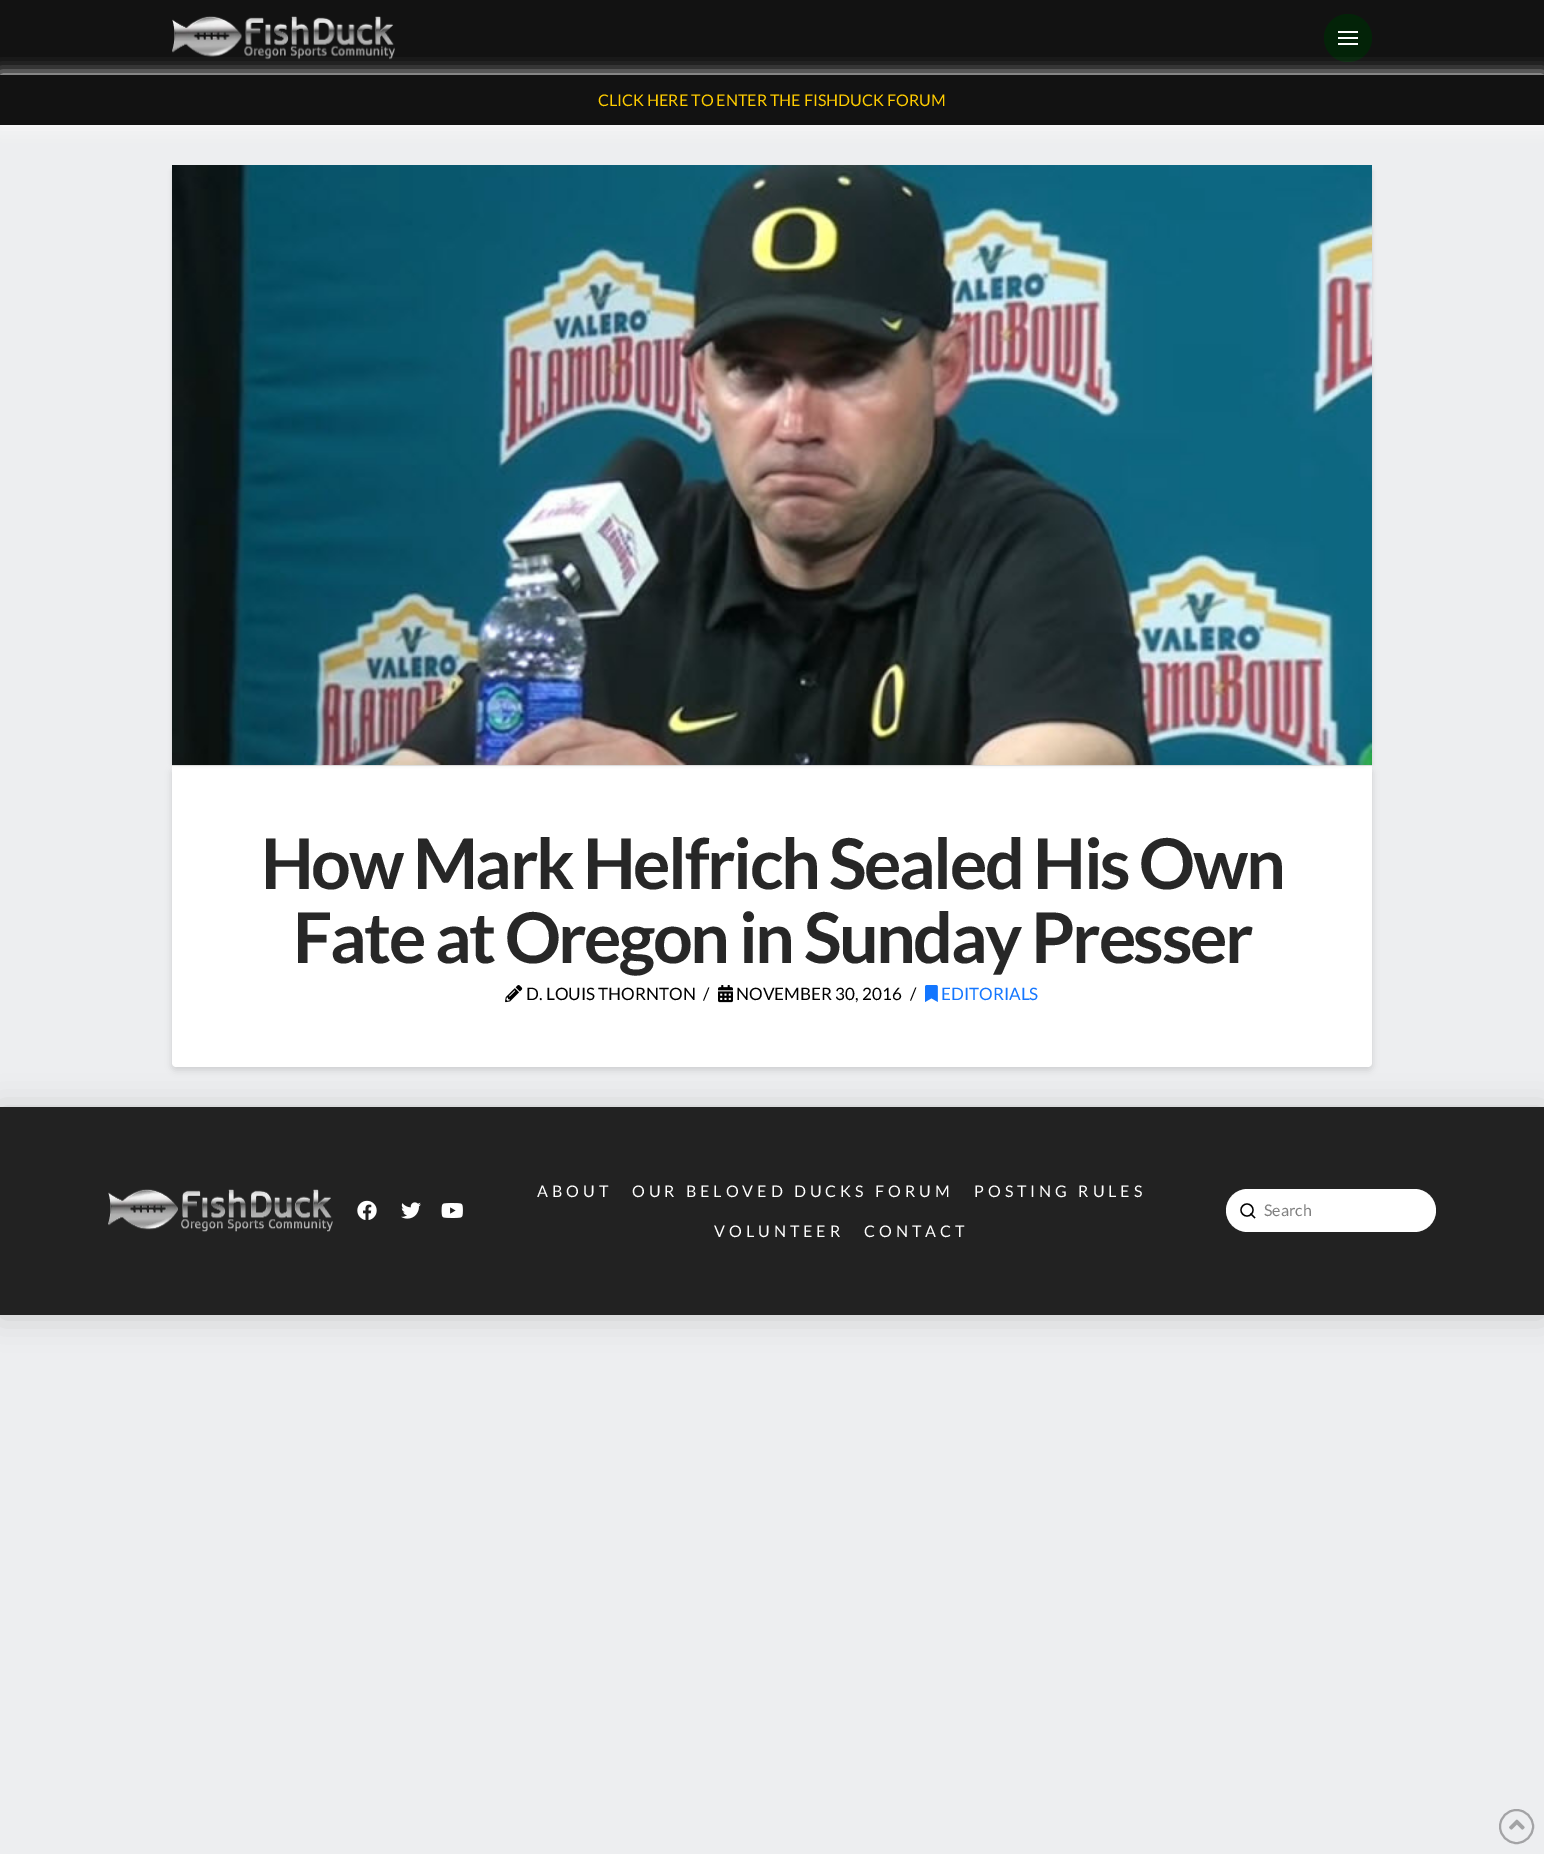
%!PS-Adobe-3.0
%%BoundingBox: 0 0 1544 1854
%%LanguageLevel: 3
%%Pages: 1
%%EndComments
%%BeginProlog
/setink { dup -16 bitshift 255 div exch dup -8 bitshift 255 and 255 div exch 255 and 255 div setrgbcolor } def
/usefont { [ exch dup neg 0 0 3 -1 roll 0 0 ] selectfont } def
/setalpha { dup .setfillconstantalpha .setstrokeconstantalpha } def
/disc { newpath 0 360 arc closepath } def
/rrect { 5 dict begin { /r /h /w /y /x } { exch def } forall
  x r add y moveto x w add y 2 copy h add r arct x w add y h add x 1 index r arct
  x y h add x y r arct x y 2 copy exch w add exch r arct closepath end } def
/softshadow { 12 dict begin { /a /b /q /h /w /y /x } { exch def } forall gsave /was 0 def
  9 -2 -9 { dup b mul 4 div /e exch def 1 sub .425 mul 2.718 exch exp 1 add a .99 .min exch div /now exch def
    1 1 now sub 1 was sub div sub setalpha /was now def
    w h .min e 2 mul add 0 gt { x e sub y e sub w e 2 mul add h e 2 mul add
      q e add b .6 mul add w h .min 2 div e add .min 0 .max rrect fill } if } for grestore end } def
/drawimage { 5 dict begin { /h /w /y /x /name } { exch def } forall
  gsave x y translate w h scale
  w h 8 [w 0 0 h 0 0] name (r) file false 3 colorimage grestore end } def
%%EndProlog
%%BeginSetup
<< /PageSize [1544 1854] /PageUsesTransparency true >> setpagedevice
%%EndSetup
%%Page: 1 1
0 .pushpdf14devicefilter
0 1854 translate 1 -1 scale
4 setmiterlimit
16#EDEEF0 setink
0 0 1544 1854 rectfill
16#121212 setink
0 0 1544 75 rectfill
(img1.raw) 172 16 223 44 drawimage
16#032308 setink
1348 38 24 disc fill
[
    [1338 31 20 2 16#FFFFFF]
    [1338 37 20 2 16#FFFFFF]
    [1338 43 20 2 16#FFFFFF]
] { aload pop setink rectfill } forall
0 75 1544 50 0 8 1 softshadow
16#121212 setink
0 75 1544 50 rectfill
/Lato-Regular 16 usefont
16#FFCC00 setink
598 106 moveto (CLICK HERE TO ENTER THE FISHDUCK FORUM) show
16#000000 setink
172 769 1200 301 4 3.5 0.13 softshadow
16#FFFFFF setink
172 766 moveto 1372 766 lineto 1372 1063 lineto 1372 1065 1370 1067 1368 1067 curveto 176 1067 lineto 174 1067 172 1065 172 1063 curveto closepath fill
16#000000 setink
172 171 1192 593 0 2 0.13 softshadow
180 171 1192 593 0 2 0.13 softshadow
16#DDDDDD setink
172 765 1200 1 rectfill
(img2.raw) 172 165 1200 600 drawimage
/Lato-Bold 70 usefont
16#272727 setink
261 889 moveto -2.45 0 (How Mark Helfrich Sealed His Own) ashow
293 963 moveto -2.45 0 (Fate at Oregon in Sunday Presser) ashow
(img3.raw) 505 985 18 18 drawimage
/Lato-Regular 17.1 usefont
16#000000 setink
526 1000 moveto (D. LOUIS THORNTON) show
703 1000 moveto (/) show
(img4.raw) 718 985 15 18 drawimage
736 1000 moveto (NOVEMBER 30, 2016) show
910 1000 moveto (/) show
(img5.raw) 925 985 13 17 drawimage
16#1376FF setink
941 1000 moveto (EDITORIALS) show
16#000000 setink
0 1109 1544 208 0 16 0.15 softshadow
16#222222 setink
0 1107 1544 208 rectfill
(img6.raw) 108 1189 225 43 drawimage
(img7.raw) 357 1200 20 20 drawimage
(img8.raw) 401 1202 20 17 drawimage
(img9.raw) 441 1203 22 15 drawimage
/Lato-Regular 16 usefont
16#FFFFFF setink
537 1197 moveto 4 0 (ABOUT) ashow
632 1197 moveto 4 0 (OUR BELOVED DUCKS FORUM) ashow
974 1197 moveto 4 0 (POSTING RULES) ashow
714 1237 moveto 4 0 (VOLUNTEER) ashow
864 1237 moveto 4 0 (CONTACT) ashow
1226 1189 210 43 21.5 rrect fill
16#000000 setink
1.3 setlinewidth
1247 1210 6 disc stroke
2 setlinecap
1254.5 1217.5 moveto 1251 1214 lineto stroke
16#808080 setink
1264 1216 moveto (Search) show
16#A3A3A5 setink
2 setlinewidth
0 setlinecap
1516.5 1826.5 16.5 disc stroke
(img10.raw) 1509 1819 16 11 drawimage
.poppdf14devicefilter showpage
%%EOF
